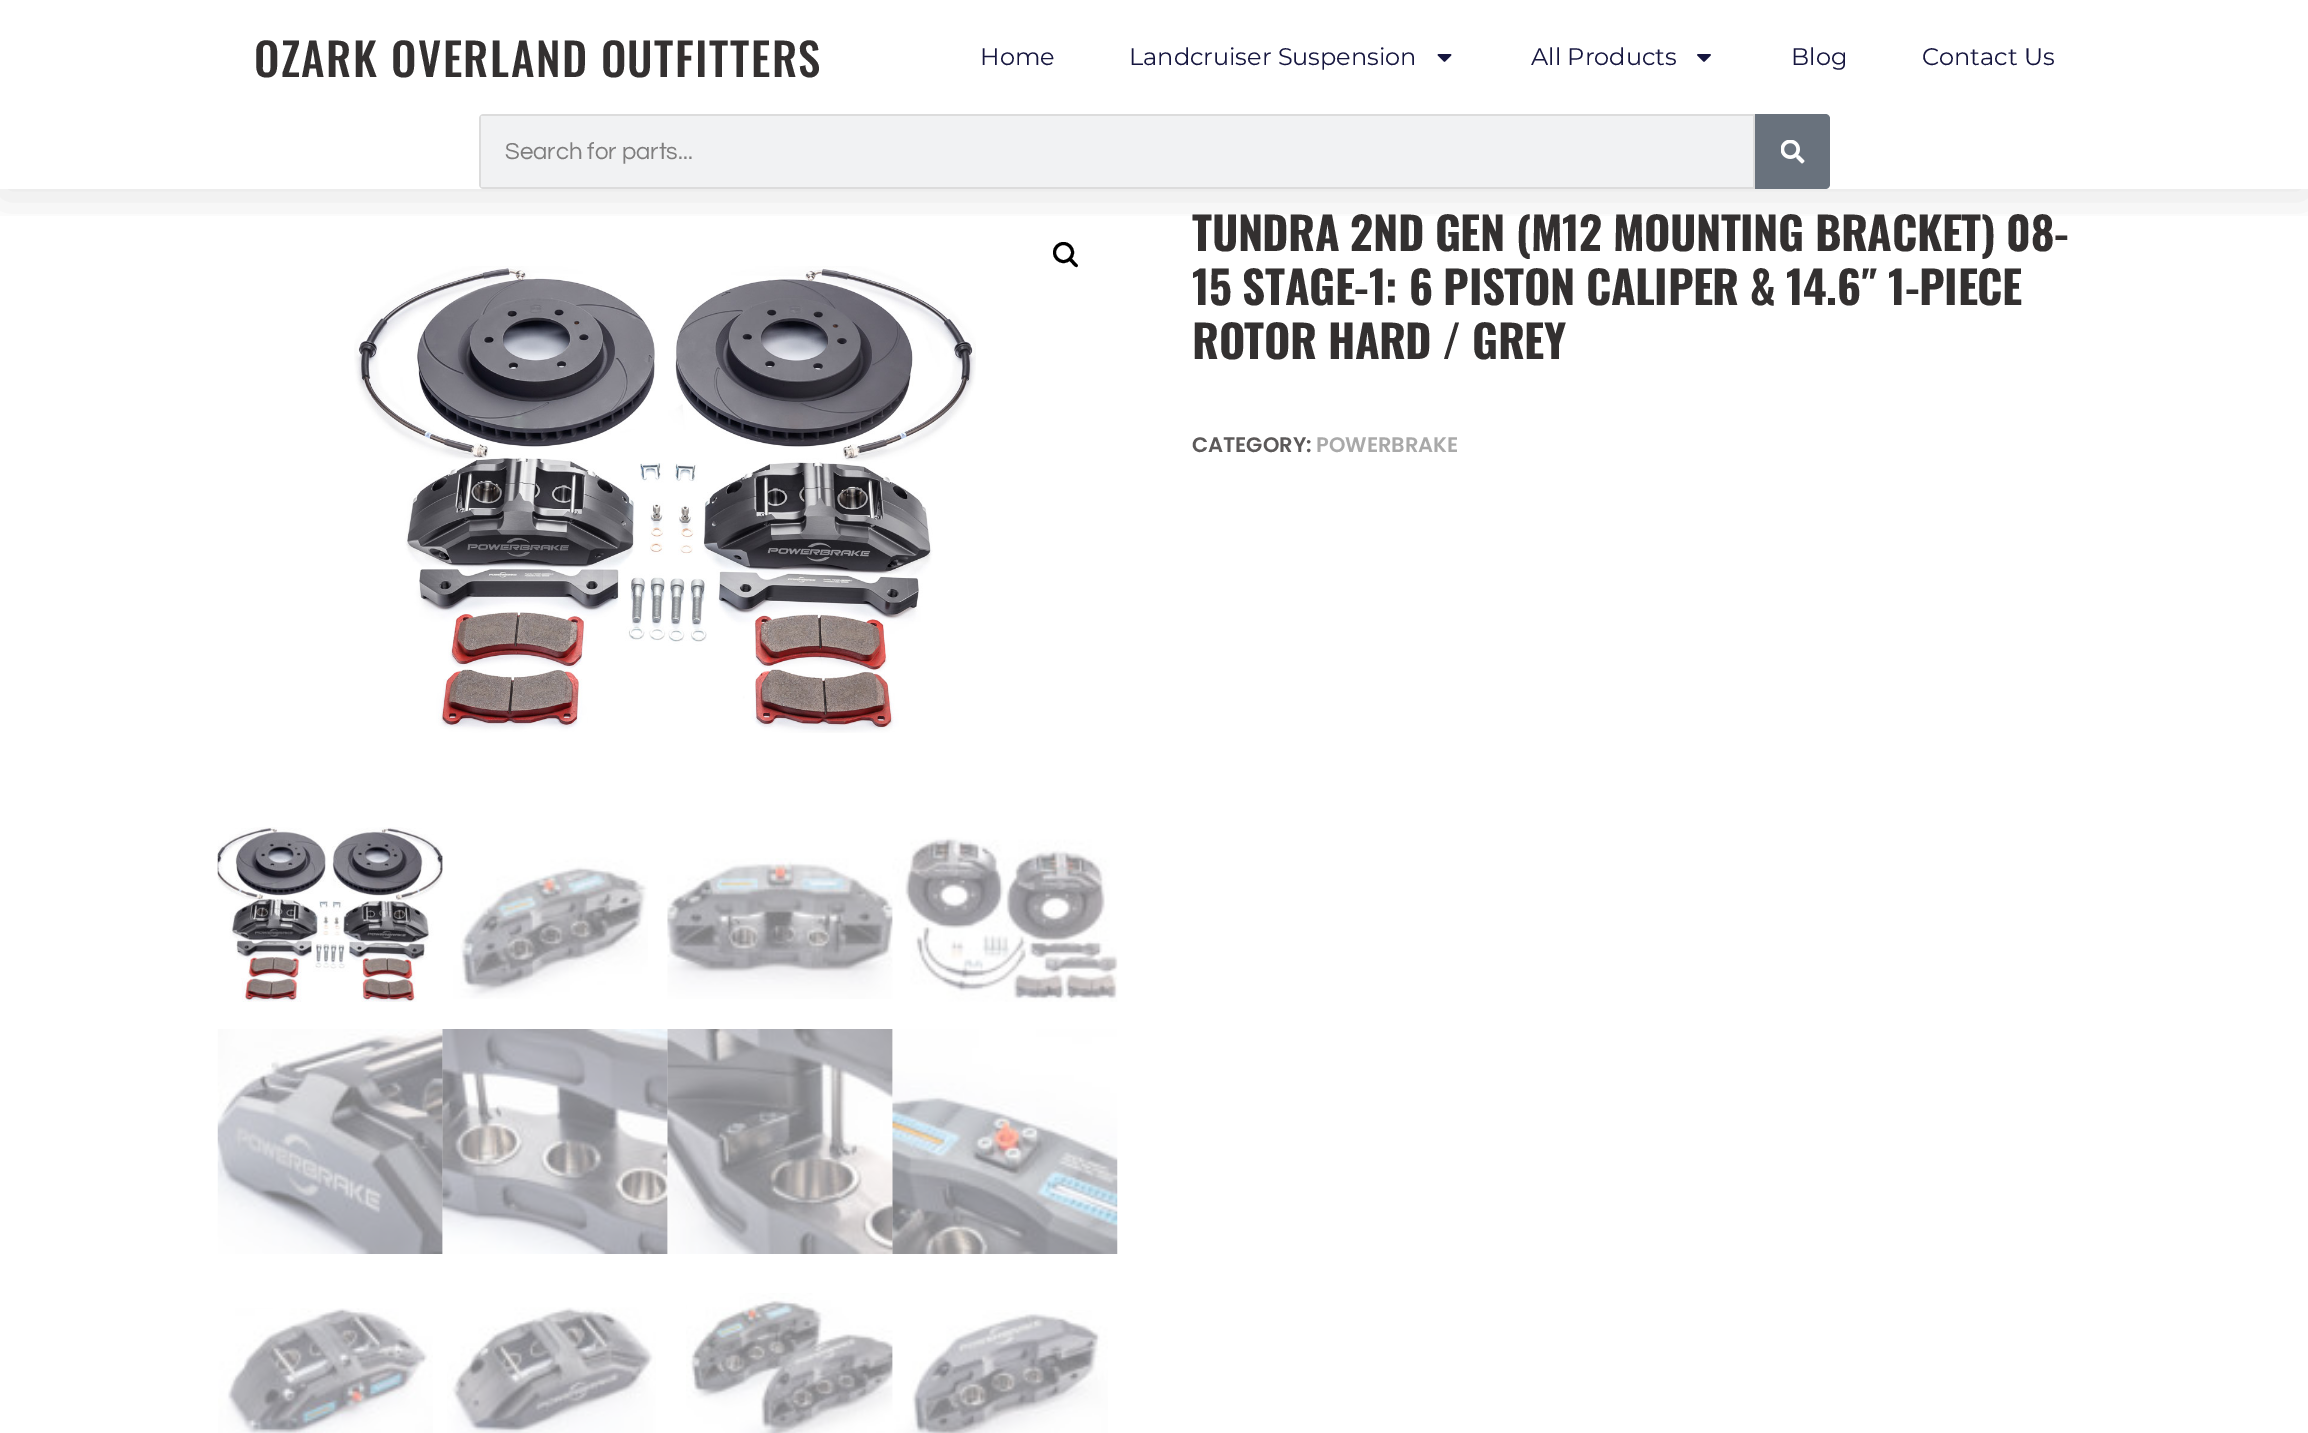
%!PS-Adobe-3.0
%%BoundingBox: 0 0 2308 1433
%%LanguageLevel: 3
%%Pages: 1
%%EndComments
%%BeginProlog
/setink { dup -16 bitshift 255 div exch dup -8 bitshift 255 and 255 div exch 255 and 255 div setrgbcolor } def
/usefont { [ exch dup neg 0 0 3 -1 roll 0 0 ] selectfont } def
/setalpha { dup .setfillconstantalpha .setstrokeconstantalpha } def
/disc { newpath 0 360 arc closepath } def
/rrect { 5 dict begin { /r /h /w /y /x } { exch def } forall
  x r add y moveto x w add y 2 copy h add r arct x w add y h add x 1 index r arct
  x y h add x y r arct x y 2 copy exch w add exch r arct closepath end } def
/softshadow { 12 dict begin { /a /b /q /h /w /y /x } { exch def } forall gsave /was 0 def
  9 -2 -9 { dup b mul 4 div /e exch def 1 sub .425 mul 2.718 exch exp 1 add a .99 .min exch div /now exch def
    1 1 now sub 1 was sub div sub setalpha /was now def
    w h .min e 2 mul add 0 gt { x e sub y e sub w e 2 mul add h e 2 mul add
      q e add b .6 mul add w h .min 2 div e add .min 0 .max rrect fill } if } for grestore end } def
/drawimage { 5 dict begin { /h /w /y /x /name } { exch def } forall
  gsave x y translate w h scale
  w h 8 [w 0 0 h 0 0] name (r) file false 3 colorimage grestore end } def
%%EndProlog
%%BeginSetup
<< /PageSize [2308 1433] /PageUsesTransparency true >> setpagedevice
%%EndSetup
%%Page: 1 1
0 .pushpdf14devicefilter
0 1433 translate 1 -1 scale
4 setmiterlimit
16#FFFFFF setink
0 0 2308 1433 rectfill
gsave
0 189 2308 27 rectclip
16#000000 setink
0 8 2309 189 0 22.5 0.1 softshadow
grestore
/Oswald-Medium 45 usefont
16#333030 setink
254 77 moveto 1.5 0 (OZARK OVERLAND OUTFITTERS) ashow
/Montserrat-Regular 24 usefont
16#16163F setink
980 65 moveto (Home) show
1129 65 moveto (Landcruiser Suspension) show
(img1.raw) 1437 54 15 8 drawimage
1531 65 moveto (All Products) show
(img2.raw) 1697 54 14 8 drawimage
1791 65 moveto (Blog) show
1922 65 moveto (Contact Us) show
16#F1F2F3 setink
479 114 1351 75 5 rrect fill
16#DCDCDC setink
484 114 moveto 481 114 479 116 479 119 curveto 479 184 lineto 479 187 481 189 484 189 curveto 1755 189 lineto 1755 114 lineto closepath 481 116 moveto 481 187 lineto 1753 187 lineto 1753 116 lineto closepath eofill
/Questrial-Regular 24 usefont
16#7F7E7E setink
505 159 moveto (Search for parts...) show
16#69727D setink
1755 114 moveto 1825 114 lineto 1828 114 1830 116 1830 119 curveto 1830 184 lineto 1830 187 1828 189 1825 189 curveto 1755 189 lineto closepath fill
(img3.raw) 1781 140 24 24 drawimage
16#000000 setink
3 setlinewidth
1063.5 252.5 9 disc stroke
1069 258.5 moveto 1070.5 256.5 1073.5 260.5 1074.5 261.5 curveto 1075 262.5 1079 265 1077.5 266.5 curveto 1076 268.5 1073 264.5 1072 263.5 curveto 1071.5 262.5 1067.5 260 1069 258.5 curveto closepath fill
(img4.raw) 354 266 622 467 drawimage
(img5.raw) 217 827 226 175 drawimage
(img6.raw) 442 855 206 144 drawimage
(img7.raw) 667 858 226 141 drawimage
(img8.raw) 892 837 226 165 drawimage
(img9.raw) 217 1029 226 225 drawimage
(img10.raw) 442 1029 226 225 drawimage
(img11.raw) 667 1029 226 225 drawimage
(img12.raw) 892 1029 226 225 drawimage
(img13.raw) 218 1308 215 125 drawimage
(img14.raw) 447 1307 209 126 drawimage
(img15.raw) 686 1293 207 140 drawimage
(img16.raw) 892 1310 216 123 drawimage
/Oswald-Bold 45 usefont
16#333030 setink
1192 251 moveto -0.45 0 (TUNDRA 2ND GEN \(M12 MOUNTING BRACKET\) 08-) ashow
1192 305 moveto -0.45 0 (15 STAGE-1: 6 PISTON CALIPER & 14.6″ 1-PIECE) ashow
1192 359 moveto -0.45 0 (ROTOR HARD / GREY) ashow
/Poppins-SemiBold 21 usefont
16#5C5959 setink
1192 452 moveto (CATEGORY:) show
16#A9A9A9 setink
1316 452 moveto (POWERBRAKE) show
.poppdf14devicefilter showpage
%%EOF
